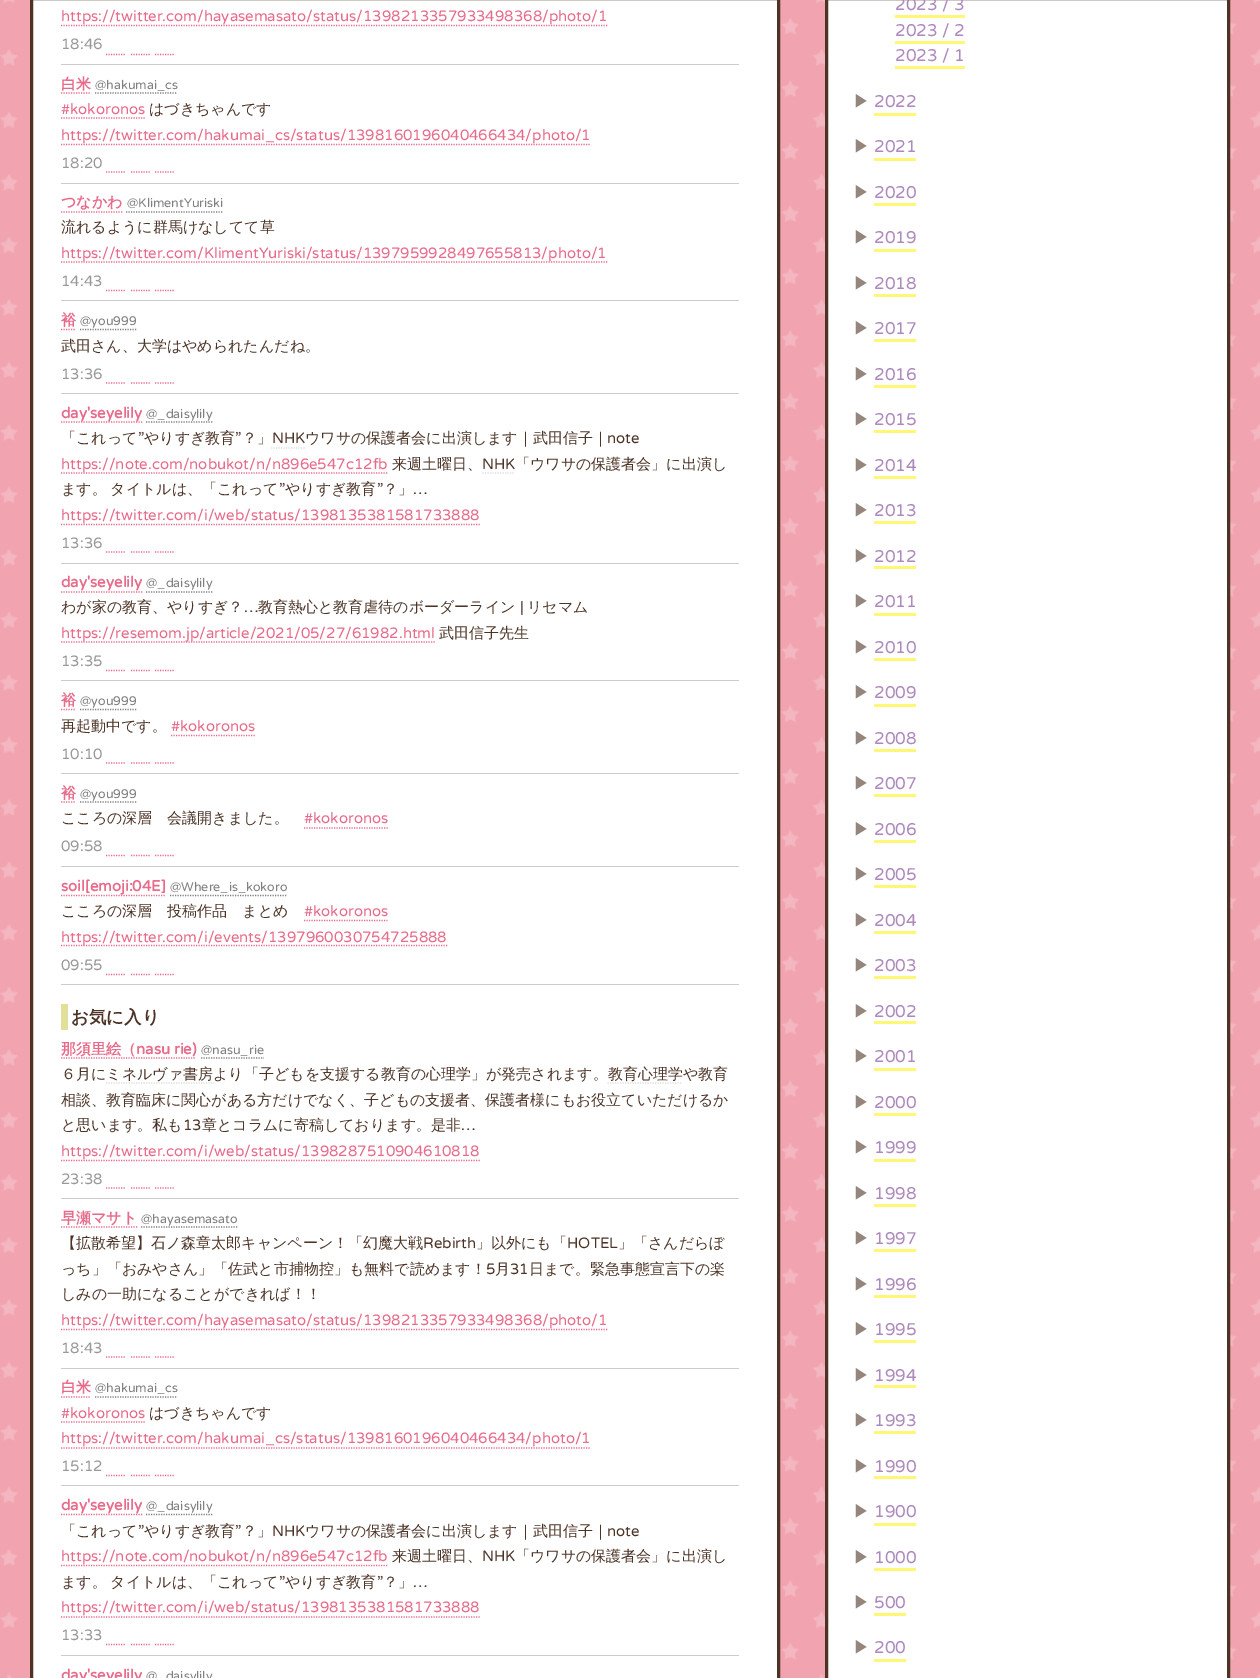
%!PS-Adobe-3.0
%%BoundingBox: 0 0 1260 1678
%%LanguageLevel: 3
%%Pages: 1
%%EndComments
%%BeginProlog
/setink { dup -16 bitshift 255 div exch dup -8 bitshift 255 and 255 div exch 255 and 255 div setrgbcolor } def
/usefont { [ exch dup neg 0 0 3 -1 roll 0 0 ] selectfont } def
/drawimage { 5 dict begin { /h /w /y /x /name } { exch def } forall
  gsave x y translate w h scale
  w h 8 [w 0 0 h 0 0] name (r) file false 3 colorimage grestore end } def
%%EndProlog
%%BeginSetup
<< /PageSize [1260 1678] >> setpagedevice
%%EndSetup
%%Page: 1 1
0 1678 translate 1 -1 scale
4 setmiterlimit
16#FFFFFF setink
0 0 1260 1678 rectfill
(img1.raw) 0 0 1260 1678 drawimage
31.5 -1.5 moveto 778.5 -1.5 lineto 778.5 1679.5 lineto 31.5 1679.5 lineto closepath gsave fill grestore
16#4C3326 setink
3 setlinewidth
stroke
16#CCCCCC setink
61 64 678 1 rectfill
16#E76B8A setink
1.2 setlinewidth
[1.25 1.25] 0 setdash
61 25.5 moveto 607.5 25.5 lineto stroke
/VarelaRound-Regular 15 usefont
61 21 moveto (https://twitter.com/hayasemasato/status/1398213357933498368/photo/1) show
16#999999 setink
61 49 moveto (18:46) show
16#E76B8A setink
106 54.5 moveto 126 54.5 lineto 131 54.5 moveto 151 54.5 lineto stroke
155 54.5 moveto 175 54.5 lineto stroke
16#CCCCCC setink
61 183 678 1 rectfill
/WenQuanYiZenHei-Bold 15 usefont
16#E76B8A setink
61 89 moveto (白米) show
61 93 moveto 91 93 lineto stroke
/VarelaRound-Regular 12.5 usefont
16#808080 setink
95 89 moveto (@hakumai_cs) show
95 93 moveto 177.5 93 lineto stroke
/VarelaRound-Regular 15 usefont
16#E76B8A setink
61 114 moveto (#kokoronos) show
61 118 moveto 145 118 lineto stroke
/WenQuanYiZenHei-Medium 15 usefont
16#4C3326 setink
149 114 moveto (はづきちゃんです) show
16#E76B8A setink
61 144.5 moveto 591 144.5 lineto stroke
/VarelaRound-Regular 15 usefont
61 140 moveto (https://twitter.com/hakumai_cs/status/1398160196040466434/photo/1) show
16#999999 setink
61 168 moveto (18:20) show
16#E76B8A setink
106 172 moveto 126 172 lineto 131 172 moveto 151 172 lineto stroke
155 172 moveto 175 172 lineto stroke
16#CCCCCC setink
61 300 678 1 rectfill
/WenQuanYiZenHei-Bold 15 usefont
16#E76B8A setink
61 207 moveto (つなかわ) show
61 212 moveto 122.5 212 lineto stroke
/VarelaRound-Regular 12.5 usefont
16#808080 setink
127 207 moveto (@KlimentYuriski) show
126 212 moveto 222.5 212 lineto stroke
/WenQuanYiZenHei-Medium 15 usefont
16#4C3326 setink
61 232 moveto (流れるように群馬けなしてて草) show
16#E76B8A setink
61 262 moveto 607.5 262 lineto stroke
/VarelaRound-Regular 15 usefont
61 258 moveto (https://twitter.com/KlimentYuriski/status/1397959928497655813/photo/1) show
16#999999 setink
61 286 moveto (14:43) show
16#E76B8A setink
106 290.5 moveto 126 290.5 lineto 131 290.5 moveto 151 290.5 lineto stroke
155 290.5 moveto 175 290.5 lineto stroke
16#CCCCCC setink
61 393 678 1 rectfill
/WenQuanYiZenHei-Bold 15 usefont
16#E76B8A setink
61 325 moveto (裕) show
61 329.5 moveto 76 329.5 lineto stroke
/VarelaRound-Regular 12.5 usefont
16#808080 setink
80 325 moveto (@you999) show
80 329.5 moveto 137.5 329.5 lineto stroke
/WenQuanYiZenHei-Medium 15 usefont
16#4C3326 setink
61 351 moveto (武田さん、大学はやめられたんだね。) show
/VarelaRound-Regular 15 usefont
16#999999 setink
61 379 moveto (13:36) show
16#E76B8A setink
106 383 moveto 126 383 lineto 131 383 moveto 151 383 lineto stroke
155 383 moveto 175 383 lineto stroke
16#CCCCCC setink
61 563 678 1 rectfill
16#E76B8A setink
61 422 moveto 142.5 422 lineto stroke
/VarelaRound-Bold 15 usefont
61 418 moveto (day'seyelily) show
/VarelaRound-Regular 12.5 usefont
16#808080 setink
146 418 moveto (@_daisylily) show
146 422 moveto 212.5 422 lineto stroke
/WenQuanYiZenHei-Medium 15 usefont
16#4C3326 setink
61 443 moveto (「これって) show
/VarelaRound-Regular 15 usefont
138 443 moveto (”) show
/WenQuanYiZenHei-Medium 15 usefont
144 443 moveto (やりすぎ教育) show
/VarelaRound-Regular 15 usefont
235 443 moveto (”) show
/WenQuanYiZenHei-Medium 15 usefont
242 443 moveto (？」) show
/VarelaRound-Regular 15 usefont
272 443 moveto (NHK) show
16#DDDDDD setink
271 448 moveto 305 448 lineto stroke
/WenQuanYiZenHei-Medium 15 usefont
16#4C3326 setink
305 443 moveto (ウワサの保護者会に出演します｜武田信子｜) show
/VarelaRound-Regular 15 usefont
607 443 moveto (note) show
16#E76B8A setink
61 473 moveto 387.5 473 lineto stroke
61 469 moveto (https://note.com/nobukot/n/n896e547c12fb) show
/WenQuanYiZenHei-Medium 15 usefont
16#4C3326 setink
392 469 moveto (来週土曜日、) show
/VarelaRound-Regular 15 usefont
482 469 moveto (NHK) show
16#DDDDDD setink
482.5 473 moveto 515 473 lineto stroke
/WenQuanYiZenHei-Medium 15 usefont
16#4C3326 setink
515 469 moveto (「ウワサの保護者会」に出演し) show
61 494 moveto -1 0 32 (ます。 タイトルは、「これって) widthshow
/VarelaRound-Regular 15 usefont
279 494 moveto (”) show
/WenQuanYiZenHei-Medium 15 usefont
285 494 moveto (やりすぎ教育) show
/VarelaRound-Regular 15 usefont
377 494 moveto (”) show
/WenQuanYiZenHei-Medium 15 usefont
383 494 moveto (？」) show
/VarelaRound-Regular 15 usefont
413 494 moveto (…) show
16#E76B8A setink
61 524.5 moveto 480 524.5 lineto stroke
61 520 moveto (https://twitter.com/i/web/status/1398135381581733888) show
16#999999 setink
61 548 moveto (13:36) show
16#E76B8A setink
106 552 moveto 126 552 lineto 131 552 moveto 151 552 lineto stroke
155 552 moveto 175 552 lineto stroke
16#CCCCCC setink
61 680 678 1 rectfill
/VarelaRound-Bold 15 usefont
16#E76B8A setink
61 587 moveto (day'seyelily) show
61 592 moveto 142.5 592 lineto stroke
/VarelaRound-Regular 12.5 usefont
16#808080 setink
146 587 moveto (@_daisylily) show
146 592 moveto 212.5 592 lineto stroke
/WenQuanYiZenHei-Medium 15 usefont
16#4C3326 setink
61 612 moveto (わが家の教育、やりすぎ？) show
/VarelaRound-Regular 15 usefont
244 612 moveto (…) show
/WenQuanYiZenHei-Medium 15 usefont
258 612 moveto (教育熱心と教育虐待のボーダーライン) show
/VarelaRound-Regular 15 usefont
520 612 moveto (|) show
/WenQuanYiZenHei-Medium 15 usefont
527 612 moveto (リセマム) show
16#E76B8A setink
61 642 moveto 435 642 lineto stroke
/VarelaRound-Regular 15 usefont
61 638 moveto (https://resemom.jp/article/2021/05/27/61982.html) show
/WenQuanYiZenHei-Medium 15 usefont
16#4C3326 setink
439 638 moveto (武田信子先生) show
/VarelaRound-Regular 15 usefont
16#999999 setink
61 666 moveto (13:35) show
16#E76B8A setink
106 670.5 moveto 126 670.5 lineto 131 670.5 moveto 151 670.5 lineto stroke
155 670.5 moveto 175 670.5 lineto stroke
16#CCCCCC setink
61 773 678 1 rectfill
/WenQuanYiZenHei-Bold 15 usefont
16#E76B8A setink
61 705 moveto (裕) show
61 709.5 moveto 76 709.5 lineto stroke
/VarelaRound-Regular 12.5 usefont
16#808080 setink
80 705 moveto (@you999) show
80 709.5 moveto 137.5 709.5 lineto stroke
/WenQuanYiZenHei-Medium 15 usefont
16#4C3326 setink
61 731 moveto (再起動中です。) show
/VarelaRound-Regular 15 usefont
16#E76B8A setink
171 731 moveto (#kokoronos) show
171 735.5 moveto 255 735.5 lineto stroke
16#999999 setink
61 759 moveto (10:10) show
16#E76B8A setink
106 763 moveto 126 763 lineto 131 763 moveto 151 763 lineto stroke
155 763 moveto 175 763 lineto stroke
16#CCCCCC setink
61 866 678 1 rectfill
/WenQuanYiZenHei-Bold 15 usefont
16#E76B8A setink
61 798 moveto (裕) show
61 802 moveto 76 802 lineto stroke
/VarelaRound-Regular 12.5 usefont
16#808080 setink
80 798 moveto (@you999) show
80 802 moveto 137.5 802 lineto stroke
/WenQuanYiZenHei-Medium 15 usefont
16#4C3326 setink
61 823 moveto (こころの深層　会議開きました。) show
/VarelaRound-Regular 15 usefont
16#E76B8A setink
304 823 moveto (#kokoronos) show
304 828 moveto 389 828 lineto stroke
16#999999 setink
61 851 moveto (09:58) show
16#E76B8A setink
106 855.5 moveto 126 855.5 lineto 131 855.5 moveto 151 855.5 lineto stroke
155 855.5 moveto 175 855.5 lineto stroke
16#CCCCCC setink
61 984 678 1 rectfill
16#E76B8A setink
61 895.5 moveto 166 895.5 lineto stroke
/VarelaRound-Bold 15 usefont
61 891 moveto (soil[emoji:04E]) show
/VarelaRound-Regular 12.5 usefont
16#808080 setink
170 891 moveto (@Where_is_kokoro) show
170 895.5 moveto 287.5 895.5 lineto stroke
/WenQuanYiZenHei-Medium 15 usefont
16#4C3326 setink
61 916 moveto (こころの深層　投稿作品　まとめ) show
/VarelaRound-Regular 15 usefont
16#E76B8A setink
304 916 moveto (#kokoronos) show
304 920.5 moveto 387.5 920.5 lineto stroke
61 945.5 moveto 447.5 945.5 lineto stroke
61 942 moveto (https://twitter.com/i/events/1397960030754725888) show
16#999999 setink
61 970 moveto (09:55) show
16#E76B8A setink
106 974.5 moveto 126 974.5 lineto 131 974.5 moveto 151 974.5 lineto stroke
155 974.5 moveto 175 974.5 lineto stroke
16#E2DF9A setink
61 1004 7 26 rectfill
/WenQuanYiZenHei-Bold 17.5 usefont
16#4C3326 setink
71 1023 moveto (お気に入り) show
16#CCCCCC setink
61 1198 678 1 rectfill
/WenQuanYiZenHei-Bold 15 usefont
16#E76B8A setink
61 1054 moveto (那須里絵（) show
/VarelaRound-Bold 15 usefont
136 1054 moveto (nasu rie\)) show
61 1058 moveto 196 1058 lineto stroke
/VarelaRound-Regular 12.5 usefont
16#808080 setink
201 1054 moveto (@nasu_rie) show
201 1058 moveto 264 1058 lineto stroke
/WenQuanYiZenHei-Medium 15 usefont
16#4C3326 setink
61 1079 moveto (６月にミネルヴァ書房より「子どもを支援する教育の心理学」が発売されます。教育心理学や教育) show
16#DDDDDD setink
106 1083 moveto 214 1083 lineto stroke
607.5 1083 moveto 682.5 1083 lineto stroke
16#4C3326 setink
61 1105 moveto (相談、教育臨床に関心がある方だけでなく、子どもの支援者、保護者様にもお役立ていただけるか) show
61 1130 moveto (と思います。私も) show
/VarelaRound-Regular 15 usefont
183 1130 moveto (13) show
/WenQuanYiZenHei-Medium 15 usefont
202 1130 moveto (章とコラムに寄稿しております。是非) show
/VarelaRound-Regular 15 usefont
461 1130 moveto (…) show
16#E76B8A setink
61 1160.5 moveto 480 1160.5 lineto stroke
61 1156 moveto (https://twitter.com/i/web/status/1398287510904610818) show
16#999999 setink
61 1184 moveto (23:38) show
16#E76B8A setink
106 1188 moveto 126 1188 lineto 131 1188 moveto 151 1188 lineto stroke
155 1188 moveto 175 1188 lineto stroke
16#CCCCCC setink
61 1368 678 1 rectfill
/WenQuanYiZenHei-Bold 15 usefont
16#E76B8A setink
61 1223 moveto (早瀬マサト) show
61 1227 moveto 137.5 1227 lineto stroke
/VarelaRound-Regular 12.5 usefont
16#808080 setink
141 1223 moveto (@hayasemasato) show
141 1227 moveto 237.5 1227 lineto stroke
/WenQuanYiZenHei-Medium 15 usefont
16#4C3326 setink
61 1248 moveto (【拡散希望】石ノ森章太郎キャンペーン！「幻魔大戦) show
/VarelaRound-Regular 15 usefont
423 1248 moveto (Rebirth) show
/WenQuanYiZenHei-Medium 15 usefont
476 1248 moveto (」以外にも「) show
/VarelaRound-Regular 15 usefont
567 1248 moveto (HOTEL) show
/WenQuanYiZenHei-Medium 15 usefont
618 1248 moveto (」「さんだらぼ) show
61 1274 moveto (っち」「おみやさん」「佐武と市捕物控」も無料で読めます！) show
/VarelaRound-Regular 15 usefont
486 1274 moveto (5) show
/WenQuanYiZenHei-Medium 15 usefont
495 1274 moveto (月) show
/VarelaRound-Regular 15 usefont
510 1274 moveto (31) show
/WenQuanYiZenHei-Medium 15 usefont
529 1274 moveto (日まで。緊急事態宣言下の楽) show
61 1299 moveto (しみの一助になることができれば！！) show
16#E76B8A setink
61 1329.5 moveto 607.5 1329.5 lineto stroke
/VarelaRound-Regular 15 usefont
61 1325 moveto (https://twitter.com/hayasemasato/status/1398213357933498368/photo/1) show
16#999999 setink
61 1353 moveto (18:43) show
16#E76B8A setink
106 1357 moveto 126 1357 lineto 131 1357 moveto 151 1357 lineto stroke
155 1357 moveto 175 1357 lineto stroke
16#CCCCCC setink
61 1485 678 1 rectfill
/WenQuanYiZenHei-Bold 15 usefont
16#E76B8A setink
61 1392 moveto (白米) show
61 1397 moveto 91 1397 lineto stroke
/VarelaRound-Regular 12.5 usefont
16#808080 setink
95 1392 moveto (@hakumai_cs) show
95 1397 moveto 177.5 1397 lineto stroke
/VarelaRound-Regular 15 usefont
16#E76B8A setink
61 1418 moveto (#kokoronos) show
61 1422 moveto 145 1422 lineto stroke
/WenQuanYiZenHei-Medium 15 usefont
16#4C3326 setink
149 1418 moveto (はづきちゃんです) show
/VarelaRound-Regular 15 usefont
16#E76B8A setink
61 1443 moveto (https://twitter.com/hakumai_cs/status/1398160196040466434/photo/1) show
61 1448 moveto 591 1448 lineto stroke
16#999999 setink
61 1471 moveto (15:12) show
16#E76B8A setink
106 1475.5 moveto 126 1475.5 lineto 131 1475.5 moveto 151 1475.5 lineto stroke
155 1475.5 moveto 175 1475.5 lineto stroke
16#CCCCCC setink
61 1655 678 1 rectfill
16#E76B8A setink
61 1514.5 moveto 142.5 1514.5 lineto stroke
/VarelaRound-Bold 15 usefont
61 1510 moveto (day'seyelily) show
/VarelaRound-Regular 12.5 usefont
16#808080 setink
146 1510 moveto (@_daisylily) show
146 1514.5 moveto 212.5 1514.5 lineto stroke
/WenQuanYiZenHei-Medium 15 usefont
16#4C3326 setink
61 1536 moveto (「これって) show
/VarelaRound-Regular 15 usefont
138 1536 moveto (”) show
/WenQuanYiZenHei-Medium 15 usefont
144 1536 moveto (やりすぎ教育) show
/VarelaRound-Regular 15 usefont
235 1536 moveto (”) show
/WenQuanYiZenHei-Medium 15 usefont
242 1536 moveto (？」) show
/VarelaRound-Regular 15 usefont
272 1536 moveto (NHK) show
/WenQuanYiZenHei-Medium 15 usefont
305 1536 moveto (ウワサの保護者会に出演します｜武田信子｜) show
/VarelaRound-Regular 15 usefont
607 1536 moveto (note) show
16#E76B8A setink
61 1565.5 moveto 387.5 1565.5 lineto stroke
61 1561 moveto (https://note.com/nobukot/n/n896e547c12fb) show
/WenQuanYiZenHei-Medium 15 usefont
16#4C3326 setink
392 1561 moveto (来週土曜日、) show
/VarelaRound-Regular 15 usefont
482 1561 moveto (NHK) show
/WenQuanYiZenHei-Medium 15 usefont
515 1561 moveto (「ウワサの保護者会」に出演し) show
61 1587 moveto -1 0 32 (ます。 タイトルは、「これって) widthshow
/VarelaRound-Regular 15 usefont
279 1587 moveto (”) show
/WenQuanYiZenHei-Medium 15 usefont
285 1587 moveto (やりすぎ教育) show
/VarelaRound-Regular 15 usefont
377 1587 moveto (”) show
/WenQuanYiZenHei-Medium 15 usefont
383 1587 moveto (？」) show
/VarelaRound-Regular 15 usefont
413 1587 moveto (…) show
16#E76B8A setink
61 1612 moveto (https://twitter.com/i/web/status/1398135381581733888) show
61 1617 moveto 480 1617 lineto stroke
16#999999 setink
61 1640 moveto (13:33) show
16#E76B8A setink
106 1644.5 moveto 126 1644.5 lineto 131 1644.5 moveto 151 1644.5 lineto stroke
155 1644.5 moveto 175 1644.5 lineto stroke
/VarelaRound-Bold 15 usefont
61 1680 moveto (day'seyelily) show
/VarelaRound-Regular 12.5 usefont
16#808080 setink
146 1680 moveto (@_daisylily) show
16#FFFFFF setink
826.5 -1.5 moveto 1228.5 -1.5 lineto 1228.5 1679.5 lineto 826.5 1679.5 lineto closepath gsave fill grestore
16#4C3326 setink
3 setlinewidth
[] 0 setdash
stroke
/VarelaRound-Regular 17 usefont
16#AE89BD setink
895 10 moveto (2023 / 3) show
16#FFF775 setink
895 15 70 3 rectfill
16#AE89BD setink
895 36 moveto (2023 / 2) show
16#FFF775 setink
895 41 70 3 rectfill
16#AE89BD setink
895 61 moveto (2023 / 1) show
16#FFF775 setink
895 66 70 3 rectfill
/WenQuanYiZenHei-Medium 17 usefont
16#94857D setink
853 107 moveto (▶) show
/VarelaRound-Regular 17 usefont
16#AE89BD setink
874 107 moveto (2022) show
16#FFF775 setink
874 113 42 3 rectfill
/WenQuanYiZenHei-Medium 17 usefont
16#94857D setink
853 152 moveto (▶) show
/VarelaRound-Regular 17 usefont
16#AE89BD setink
874 152 moveto (2021) show
16#FFF775 setink
874 158 42 3 rectfill
/WenQuanYiZenHei-Medium 17 usefont
16#94857D setink
853 198 moveto (▶) show
/VarelaRound-Regular 17 usefont
16#AE89BD setink
874 198 moveto (2020) show
16#FFF775 setink
874 203 42 3 rectfill
/WenQuanYiZenHei-Medium 17 usefont
16#94857D setink
853 243 moveto (▶) show
/VarelaRound-Regular 17 usefont
16#AE89BD setink
874 243 moveto (2019) show
16#FFF775 setink
874 249 42 3 rectfill
/WenQuanYiZenHei-Medium 17 usefont
16#94857D setink
853 289 moveto (▶) show
/VarelaRound-Regular 17 usefont
16#AE89BD setink
874 289 moveto (2018) show
16#FFF775 setink
874 294 42 3 rectfill
/WenQuanYiZenHei-Medium 17 usefont
16#94857D setink
853 334 moveto (▶) show
/VarelaRound-Regular 17 usefont
16#AE89BD setink
874 334 moveto (2017) show
16#FFF775 setink
874 339 42 3 rectfill
/WenQuanYiZenHei-Medium 17 usefont
16#94857D setink
853 380 moveto (▶) show
/VarelaRound-Regular 17 usefont
16#AE89BD setink
874 380 moveto (2016) show
16#FFF775 setink
874 385 42 3 rectfill
/WenQuanYiZenHei-Medium 17 usefont
16#94857D setink
853 425 moveto (▶) show
/VarelaRound-Regular 17 usefont
16#AE89BD setink
874 425 moveto (2015) show
16#FFF775 setink
874 430 42 3 rectfill
/WenQuanYiZenHei-Medium 17 usefont
16#94857D setink
853 471 moveto (▶) show
/VarelaRound-Regular 17 usefont
16#AE89BD setink
874 471 moveto (2014) show
16#FFF775 setink
874 476 42 3 rectfill
/WenQuanYiZenHei-Medium 17 usefont
16#94857D setink
853 516 moveto (▶) show
/VarelaRound-Regular 17 usefont
16#AE89BD setink
874 516 moveto (2013) show
16#FFF775 setink
874 521 42 3 rectfill
/WenQuanYiZenHei-Medium 17 usefont
16#94857D setink
853 562 moveto (▶) show
/VarelaRound-Regular 17 usefont
16#AE89BD setink
874 562 moveto (2012) show
16#FFF775 setink
874 566 42 3 rectfill
/WenQuanYiZenHei-Medium 17 usefont
16#94857D setink
853 607 moveto (▶) show
/VarelaRound-Regular 17 usefont
16#AE89BD setink
874 607 moveto (2011) show
16#FFF775 setink
874 613 42 3 rectfill
/WenQuanYiZenHei-Medium 17 usefont
16#94857D setink
853 653 moveto (▶) show
/VarelaRound-Regular 17 usefont
16#AE89BD setink
874 653 moveto (2010) show
16#FFF775 setink
874 658 42 3 rectfill
/WenQuanYiZenHei-Medium 17 usefont
16#94857D setink
853 698 moveto (▶) show
/VarelaRound-Regular 17 usefont
16#AE89BD setink
874 698 moveto (2009) show
16#FFF775 setink
874 704 42 3 rectfill
/WenQuanYiZenHei-Medium 17 usefont
16#94857D setink
853 744 moveto (▶) show
/VarelaRound-Regular 17 usefont
16#AE89BD setink
874 744 moveto (2008) show
16#FFF775 setink
874 749 42 3 rectfill
/WenQuanYiZenHei-Medium 17 usefont
16#94857D setink
853 789 moveto (▶) show
/VarelaRound-Regular 17 usefont
16#AE89BD setink
874 789 moveto (2007) show
16#FFF775 setink
874 794 42 3 rectfill
/WenQuanYiZenHei-Medium 17 usefont
16#94857D setink
853 835 moveto (▶) show
/VarelaRound-Regular 17 usefont
16#AE89BD setink
874 835 moveto (2006) show
16#FFF775 setink
874 840 42 3 rectfill
/WenQuanYiZenHei-Medium 17 usefont
16#94857D setink
853 880 moveto (▶) show
/VarelaRound-Regular 17 usefont
16#AE89BD setink
874 880 moveto (2005) show
16#FFF775 setink
874 885 42 3 rectfill
/WenQuanYiZenHei-Medium 17 usefont
16#94857D setink
853 926 moveto (▶) show
/VarelaRound-Regular 17 usefont
16#AE89BD setink
874 926 moveto (2004) show
16#FFF775 setink
874 931 42 3 rectfill
/WenQuanYiZenHei-Medium 17 usefont
16#94857D setink
853 971 moveto (▶) show
/VarelaRound-Regular 17 usefont
16#AE89BD setink
874 971 moveto (2003) show
16#FFF775 setink
874 976 42 3 rectfill
/WenQuanYiZenHei-Medium 17 usefont
16#94857D setink
853 1017 moveto (▶) show
/VarelaRound-Regular 17 usefont
16#AE89BD setink
874 1017 moveto (2002) show
16#FFF775 setink
874 1021 42 3 rectfill
/WenQuanYiZenHei-Medium 17 usefont
16#94857D setink
853 1062 moveto (▶) show
/VarelaRound-Regular 17 usefont
16#AE89BD setink
874 1062 moveto (2001) show
16#FFF775 setink
874 1068 42 3 rectfill
/WenQuanYiZenHei-Medium 17 usefont
16#94857D setink
853 1108 moveto (▶) show
/VarelaRound-Regular 17 usefont
16#AE89BD setink
874 1108 moveto (2000) show
16#FFF775 setink
874 1113 42 3 rectfill
/WenQuanYiZenHei-Medium 17 usefont
16#94857D setink
853 1153 moveto (▶) show
/VarelaRound-Regular 17 usefont
16#AE89BD setink
874 1153 moveto (1999) show
16#FFF775 setink
874 1159 42 3 rectfill
/WenQuanYiZenHei-Medium 17 usefont
16#94857D setink
853 1199 moveto (▶) show
/VarelaRound-Regular 17 usefont
16#AE89BD setink
874 1199 moveto (1998) show
16#FFF775 setink
874 1204 42 3 rectfill
/WenQuanYiZenHei-Medium 17 usefont
16#94857D setink
853 1244 moveto (▶) show
/VarelaRound-Regular 17 usefont
16#AE89BD setink
874 1244 moveto (1997) show
16#FFF775 setink
874 1249 42 3 rectfill
/WenQuanYiZenHei-Medium 17 usefont
16#94857D setink
853 1290 moveto (▶) show
/VarelaRound-Regular 17 usefont
16#AE89BD setink
874 1290 moveto (1996) show
16#FFF775 setink
874 1295 42 3 rectfill
/WenQuanYiZenHei-Medium 17 usefont
16#94857D setink
853 1335 moveto (▶) show
/VarelaRound-Regular 17 usefont
16#AE89BD setink
874 1335 moveto (1995) show
16#FFF775 setink
874 1340 42 3 rectfill
/WenQuanYiZenHei-Medium 17 usefont
16#94857D setink
853 1381 moveto (▶) show
/VarelaRound-Regular 17 usefont
16#AE89BD setink
874 1381 moveto (1994) show
16#FFF775 setink
874 1385 42 3 rectfill
/WenQuanYiZenHei-Medium 17 usefont
16#94857D setink
853 1426 moveto (▶) show
/VarelaRound-Regular 17 usefont
16#AE89BD setink
874 1426 moveto (1993) show
16#FFF775 setink
874 1431 42 3 rectfill
/WenQuanYiZenHei-Medium 17 usefont
16#94857D setink
853 1472 moveto (▶) show
/VarelaRound-Regular 17 usefont
16#AE89BD setink
874 1472 moveto (1990) show
16#FFF775 setink
874 1476 42 3 rectfill
/WenQuanYiZenHei-Medium 17 usefont
16#94857D setink
853 1517 moveto (▶) show
/VarelaRound-Regular 17 usefont
16#AE89BD setink
874 1517 moveto (1900) show
16#FFF775 setink
874 1523 42 3 rectfill
/WenQuanYiZenHei-Medium 17 usefont
16#94857D setink
853 1563 moveto (▶) show
/VarelaRound-Regular 17 usefont
16#AE89BD setink
874 1563 moveto (1000) show
16#FFF775 setink
874 1568 42 3 rectfill
/WenQuanYiZenHei-Medium 17 usefont
16#94857D setink
853 1608 moveto (▶) show
/VarelaRound-Regular 17 usefont
16#AE89BD setink
874 1608 moveto (500) show
16#FFF775 setink
874 1613 32 3 rectfill
/WenQuanYiZenHei-Medium 17 usefont
16#94857D setink
853 1653 moveto (▶) show
/VarelaRound-Regular 17 usefont
16#AE89BD setink
874 1653 moveto (200) show
16#FFF775 setink
874 1659 32 3 rectfill
showpage
%%EOF
